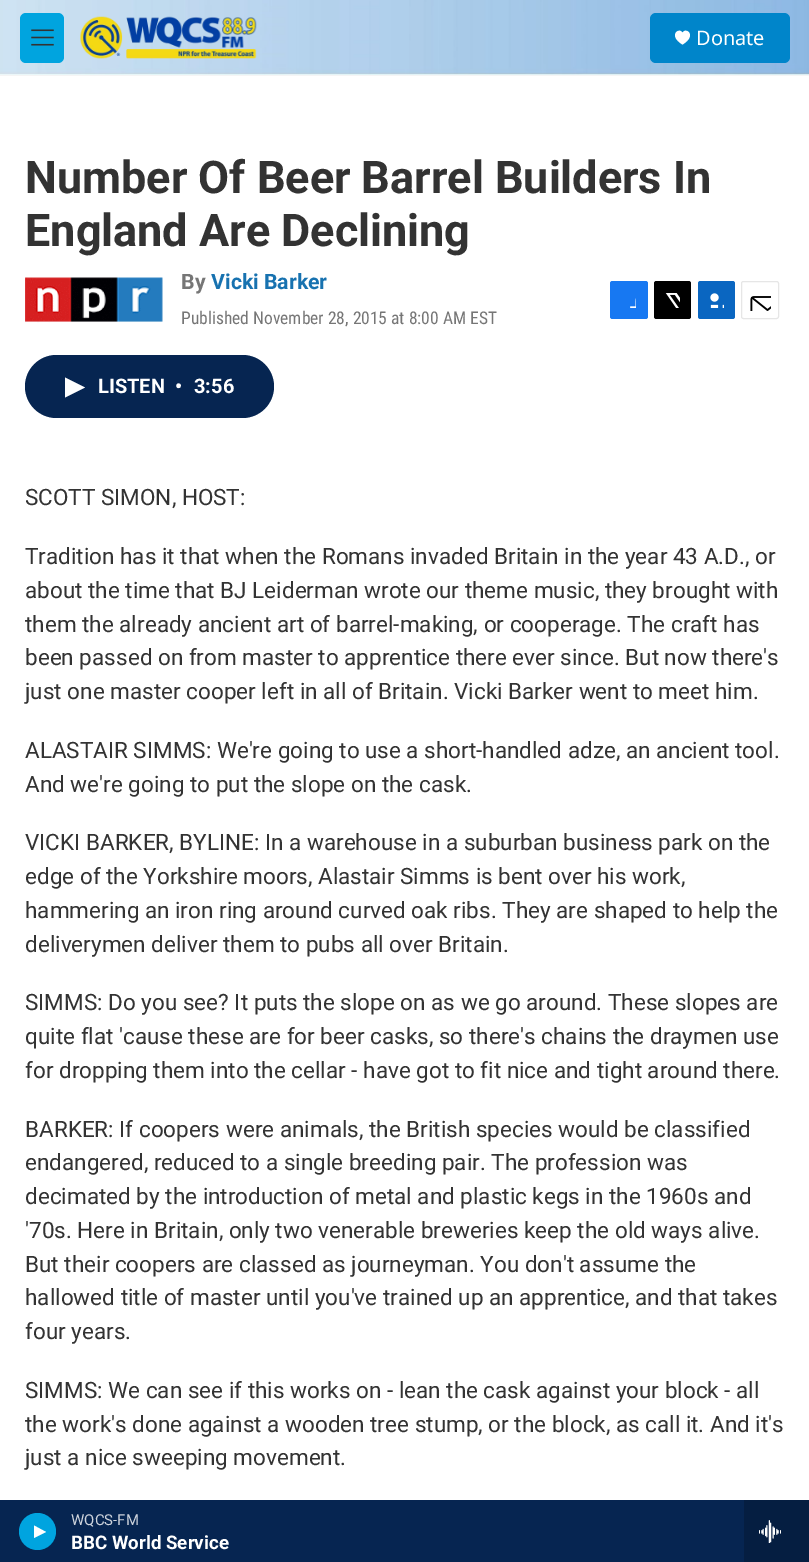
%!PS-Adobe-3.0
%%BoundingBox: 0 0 809 1562
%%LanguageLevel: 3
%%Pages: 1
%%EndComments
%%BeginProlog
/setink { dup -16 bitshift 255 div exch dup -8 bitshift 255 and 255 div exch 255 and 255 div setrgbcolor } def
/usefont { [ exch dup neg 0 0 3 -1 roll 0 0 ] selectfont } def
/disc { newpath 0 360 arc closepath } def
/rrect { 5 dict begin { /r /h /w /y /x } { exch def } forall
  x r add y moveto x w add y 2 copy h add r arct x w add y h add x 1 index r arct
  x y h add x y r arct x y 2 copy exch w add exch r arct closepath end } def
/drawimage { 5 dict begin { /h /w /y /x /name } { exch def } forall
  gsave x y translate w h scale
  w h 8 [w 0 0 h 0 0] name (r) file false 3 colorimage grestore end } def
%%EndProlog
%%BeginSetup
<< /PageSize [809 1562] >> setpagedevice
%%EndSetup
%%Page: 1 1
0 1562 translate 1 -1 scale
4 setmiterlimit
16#FFFFFF setink
0 0 809 1562 rectfill
16#F5F5F5 setink
0 75 809 1 rectfill
(img1.raw) 0 0 809 75 drawimage
16#00A4DF setink
20 13 44 50 6 rrect fill
(img2.raw) 31 29 23 17 drawimage
(img3.raw) 80 16 177 43 drawimage
16#0085CA setink
650 13 140 50 6 rrect fill
16#FFFFFF setink
682.5 33 moveto 680 26.5 667 35 682.5 44.5 curveto 698 35 685 26.5 682.5 33 curveto closepath fill
/NotoSans-Regular 20 usefont
696 45 moveto (Donate) show
16#062551 setink
0 1500 744 62 rectfill
16#00A4DF setink
37.5 1531.5 18.5 disc fill
16#FFFFFF setink
34 1525.5 moveto 46 1532 lineto 34 1538 lineto closepath fill
/Roboto-Regular 15 usefont
16#CDD3DC setink
71 1525 moveto (WQCS-FM) show
/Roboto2-Bold 18.75 usefont
16#FFFFFF setink
71 1549 moveto (BBC World Service) show
16#051E41 setink
744 1500 65 62 rectfill
(img4.raw) 759 1520 22 23 drawimage
/Roboto-Bold 45 usefont
16#333333 setink
25 193 moveto (Number Of Beer Barrel Builders In) show
25 246 moveto (England Are Declining) show
(img5.raw) 25 277 138 46 drawimage
/Roboto-Bold 21.25 usefont
16#767676 setink
181 289 moveto (By) show
16#1772B0 setink
211 289 moveto (Vicki Barker) show
/RobotoCondensed-Regular 17.5 usefont
16#767676 setink
181 324 moveto (Published November 28, 2015 at 8:00 AM EST) show
16#1778F2 setink
610 281 38 38 2.5 rrect fill
(img6.raw) 630 298 6 10 drawimage
16#000000 setink
654 281 37 38 2.5 rrect fill
(img7.raw) 665 293 15 15 drawimage
16#0A66C1 setink
698 281 37 38 2.5 rrect fill
(img8.raw) 710 293 14 15 drawimage
16#E6E6E6 setink
741.5 281.5 37 37 2 rrect stroke
(img9.raw) 750 296 21 15 drawimage
16#062551 setink
25 355 249 63 31.5 rrect fill
16#FFFFFF setink
65 377.5 moveto 85 387.5 lineto 65 397.5 lineto closepath fill
/Roboto2-Bold 20 usefont
[
    [(LISTEN) 98 393]
    [(•) 175 393]
    [(3:56) 194 393]
] { aload pop moveto show } forall
/Roboto-Regular 22.5 usefont
16#333333 setink
[
    [(SCOTT SIMON, HOST:) 25 505]
    [(Tradition has it that when the Romans invaded Britain in the year 43 A.D., or) 25 564]
    [(about the time that BJ Leiderman wrote our theme music, they brought with) 25 598]
    [(them the already ancient art of barrel-making, or cooperage. The craft has) 25 632]
    [(been passed on from master to apprentice there ever since. But now there's) 25 665]
    [(just one master cooper left in all of Britain. Vicki Barker went to meet him.) 25 699]
    [(ALASTAIR SIMMS: We're going to use a short-handled adze, an ancient tool.) 25 758]
    [(And we're going to put the slope on the cask.) 25 792]
    [(VICKI BARKER, BYLINE: In a warehouse in a suburban business park on the) 25 850]
    [(edge of the Yorkshire moors, Alastair Simms is bent over his work,) 25 884]
    [(hammering an iron ring around curved oak ribs. They are shaped to help the) 25 918]
    [(deliverymen deliver them to pubs all over Britain.) 25 952]
    [(SIMMS: Do you see? It puts the slope on as we go around. These slopes are) 25 1010]
    [(quite flat 'cause these are for beer casks, so there's chains the draymen use) 25 1044]
    [(for dropping them into the cellar - have got to fit nice and tight around there.) 25 1078]
    [(BARKER: If coopers were animals, the British species would be classified) 25 1137]
    [(endangered, reduced to a single breeding pair. The profession was) 25 1170]
    [(decimated by the introduction of metal and plastic kegs in the 1960s and) 25 1204]
    [('70s. Here in Britain, only two venerable breweries keep the old ways alive.) 25 1238]
    [(But their coopers are classed as journeyman. You don't assume the) 25 1272]
    [(hallowed title of master until you've trained up an apprentice, and that takes) 25 1305]
    [(four years.) 25 1339]
    [(SIMMS: We can see if this works on - lean the cask against your block - all) 25 1398]
    [(the work's done against a wooden tree stump, or the block, as call it. And it's) 25 1432]
    [(just a nice sweeping movement.) 25 1465]
] { aload pop moveto show } forall
showpage
%%EOF
